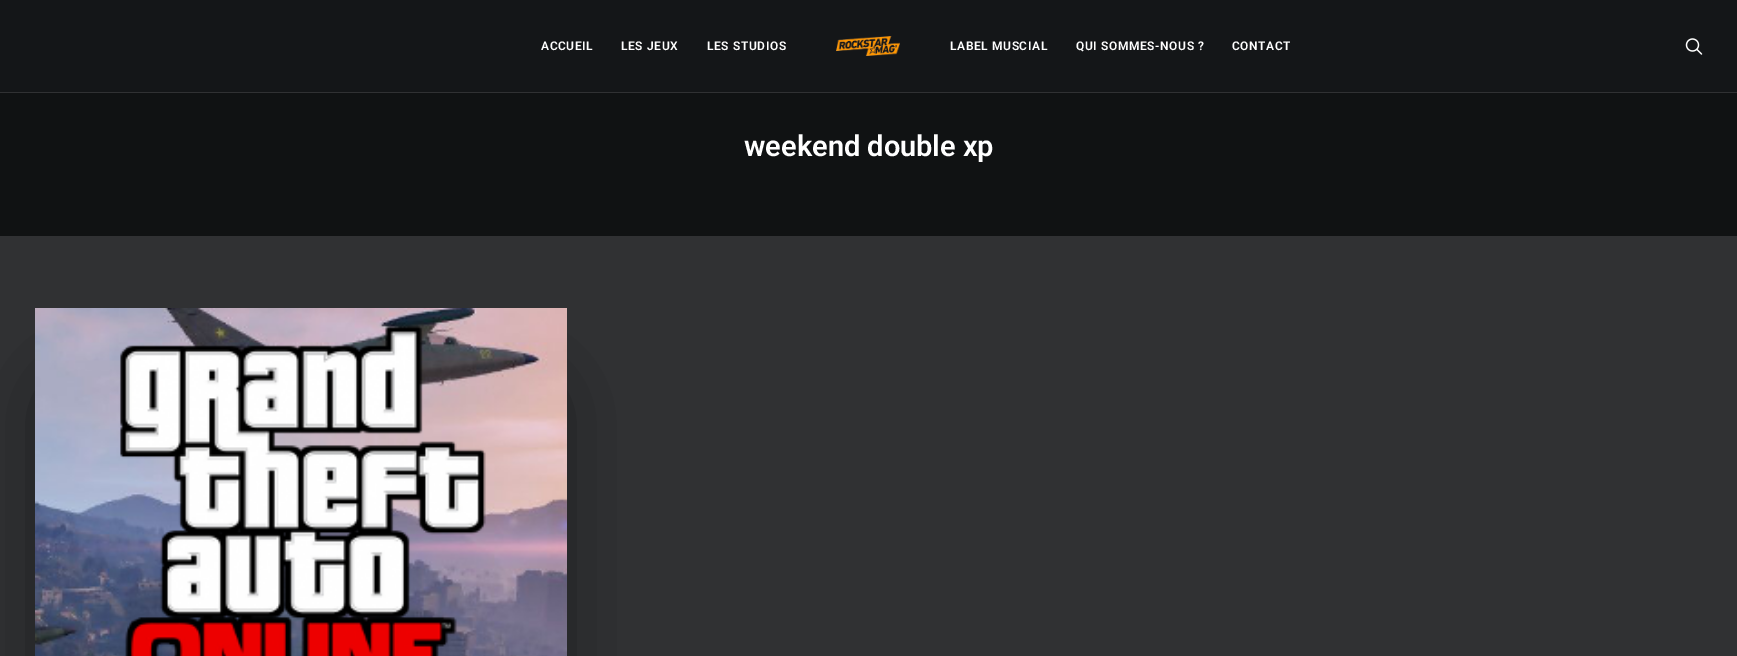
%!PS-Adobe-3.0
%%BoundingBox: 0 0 1737 656
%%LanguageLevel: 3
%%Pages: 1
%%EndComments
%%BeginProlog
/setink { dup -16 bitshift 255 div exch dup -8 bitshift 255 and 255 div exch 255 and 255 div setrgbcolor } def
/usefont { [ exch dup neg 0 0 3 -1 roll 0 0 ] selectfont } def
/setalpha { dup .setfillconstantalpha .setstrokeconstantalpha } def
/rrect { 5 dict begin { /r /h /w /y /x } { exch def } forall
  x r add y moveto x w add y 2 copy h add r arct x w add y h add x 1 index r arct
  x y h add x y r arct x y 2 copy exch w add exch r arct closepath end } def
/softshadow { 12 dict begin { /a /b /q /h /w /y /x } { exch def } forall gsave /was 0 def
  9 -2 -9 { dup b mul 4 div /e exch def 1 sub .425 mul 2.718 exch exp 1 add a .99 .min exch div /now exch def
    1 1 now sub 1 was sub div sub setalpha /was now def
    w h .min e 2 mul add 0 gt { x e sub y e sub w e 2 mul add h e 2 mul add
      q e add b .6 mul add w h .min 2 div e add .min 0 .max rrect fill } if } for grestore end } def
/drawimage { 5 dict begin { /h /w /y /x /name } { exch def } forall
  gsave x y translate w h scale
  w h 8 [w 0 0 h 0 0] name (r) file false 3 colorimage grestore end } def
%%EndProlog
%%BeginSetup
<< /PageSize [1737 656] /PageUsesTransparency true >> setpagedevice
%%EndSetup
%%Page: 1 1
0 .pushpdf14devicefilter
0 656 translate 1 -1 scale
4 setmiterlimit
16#101213 setink
0 0 1737 656 rectfill
16#141618 setink
0 0 1737 92 rectfill
16#303133 setink
0 92 1737 1 rectfill
/Roboto-SemiBold 12 usefont
16#FFFFFF setink
541 50 moveto 0.6 0 (ACCUEIL) ashow
621 50 moveto 0.6 0 (LES JEUX) ashow
707 50 moveto 0.6 0 (LES STUDIOS) ashow
(img1.raw) 836 36 64 20 drawimage
950 50 moveto 0.6 0 (LABEL MUSCIAL) ashow
1076 50 moveto 0.6 0 (QUI SOMMES-NOUS ?) ashow
1232 50 moveto 0.6 0 (CONTACT) ashow
(img2.raw) 1685 38 18 17 drawimage
/Roboto-SemiBold 29 usefont
744 156 moveto (weekend double xp) show
16#303133 setink
0 236 1737 420 rectfill
16#000000 setink
75 403 452 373 0 40 1 softshadow
(img3.raw) 35 308 532 348 drawimage
.poppdf14devicefilter showpage
%%EOF
